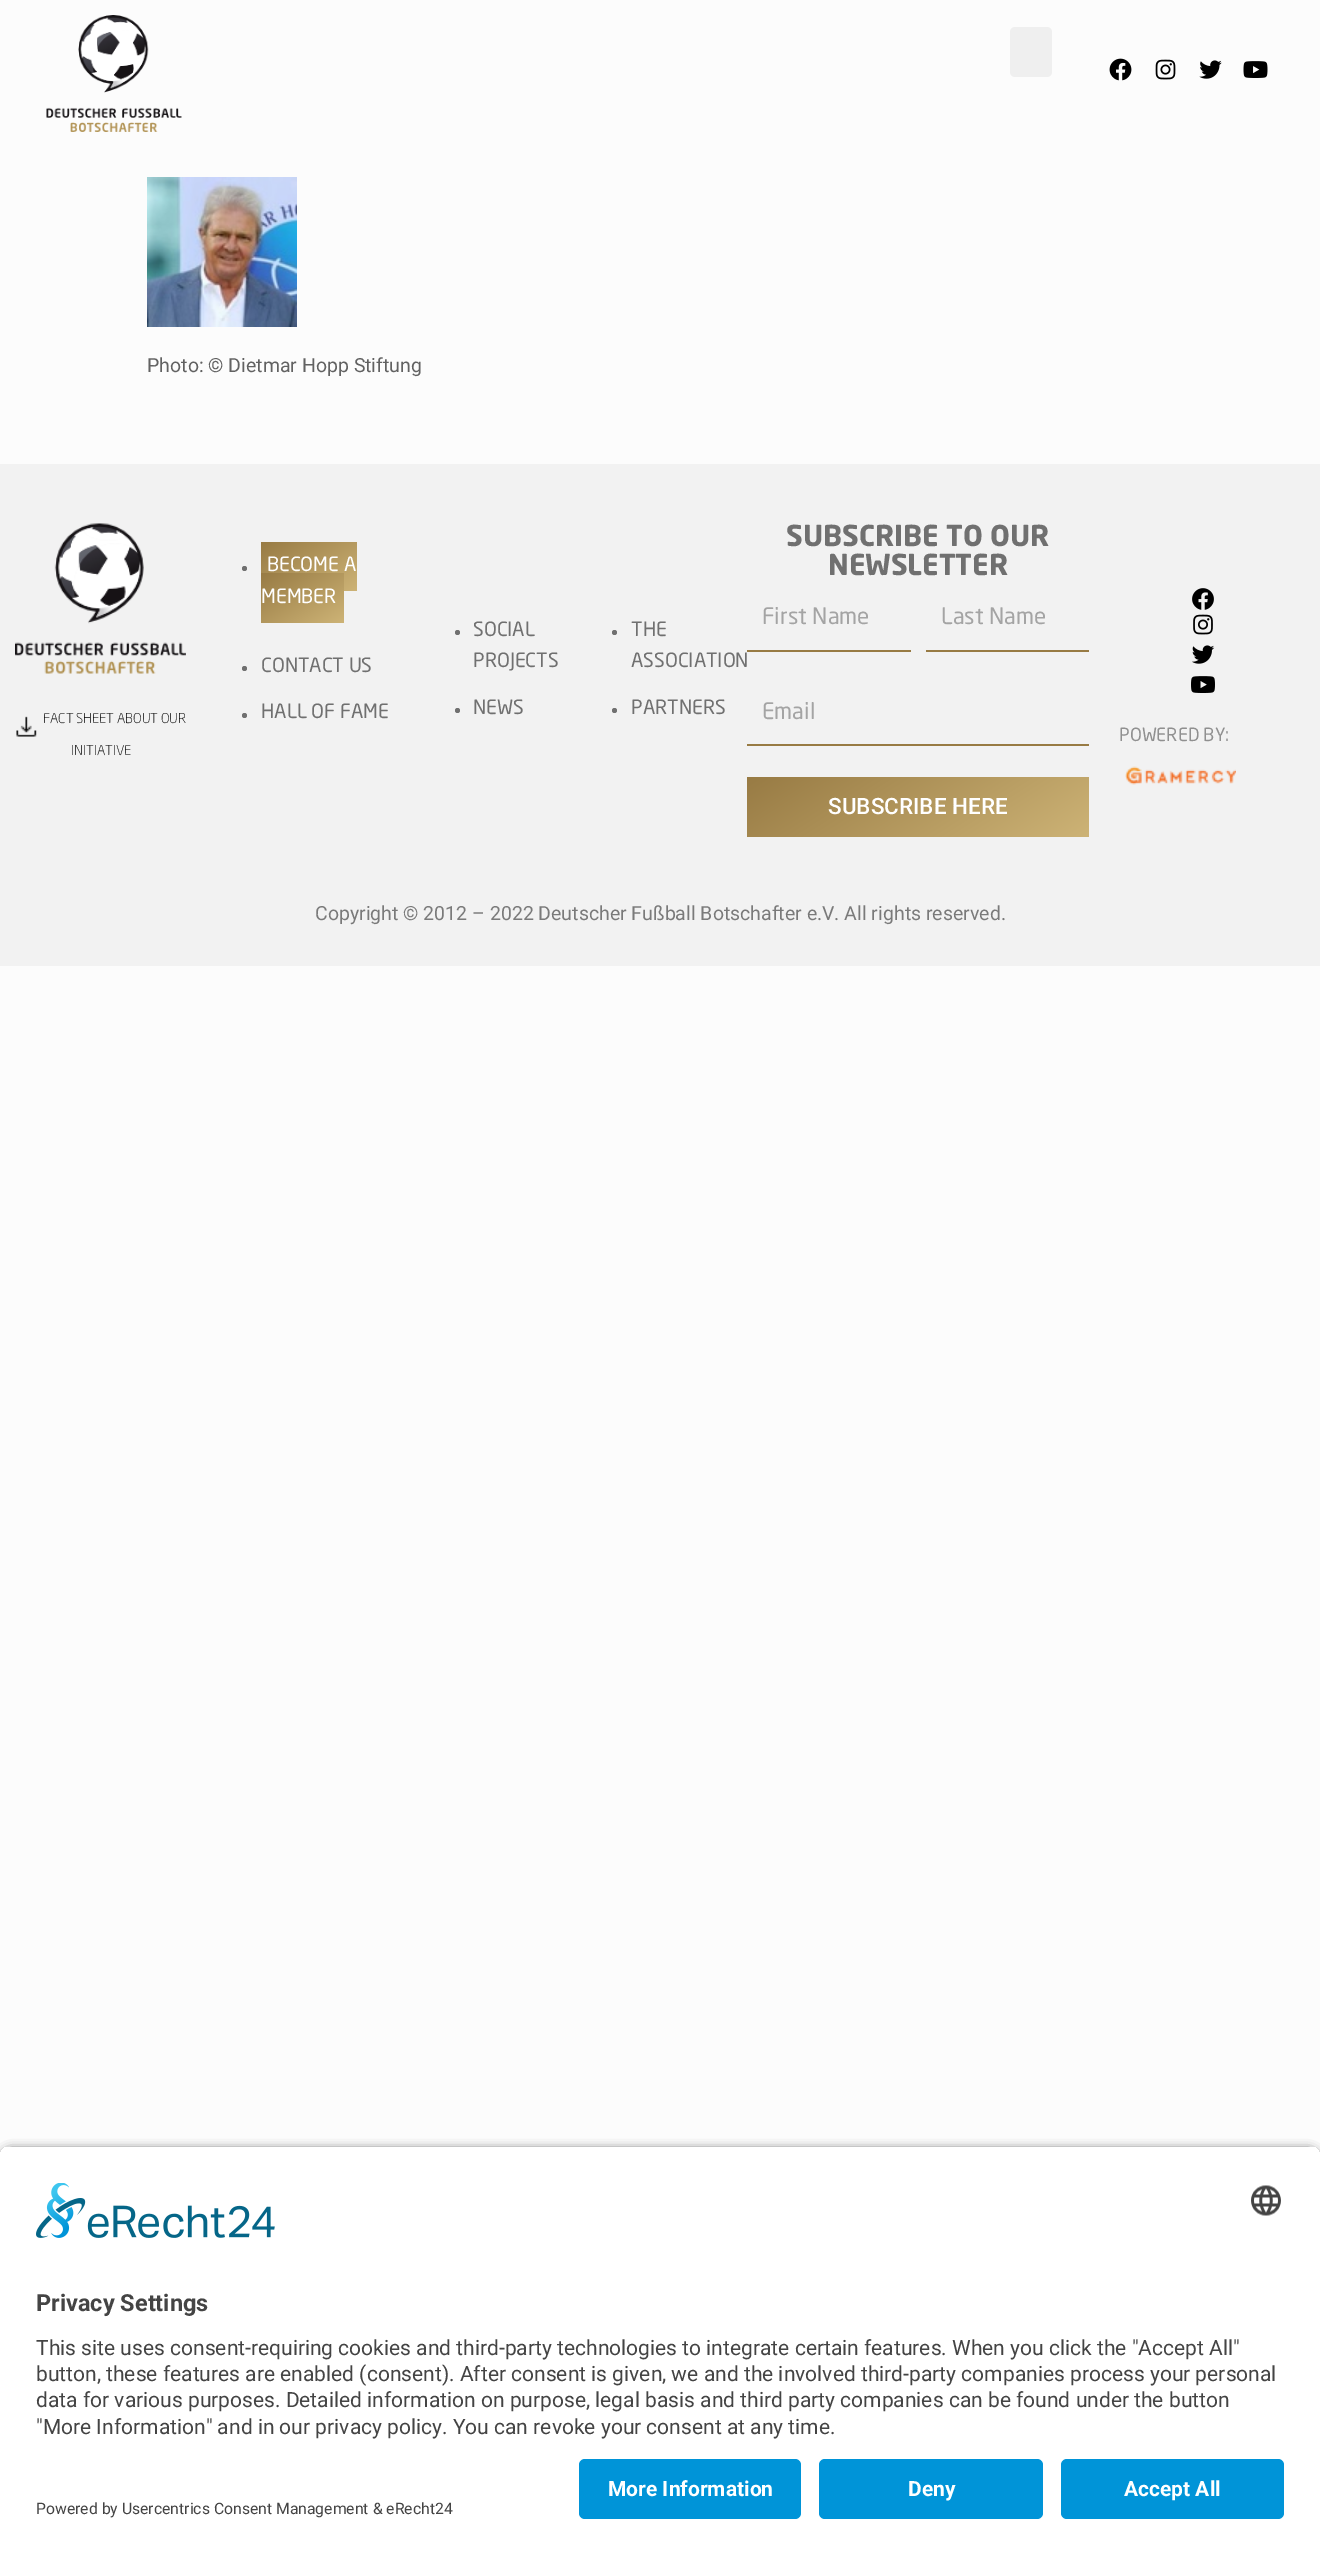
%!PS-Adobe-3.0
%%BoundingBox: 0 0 1320 2554
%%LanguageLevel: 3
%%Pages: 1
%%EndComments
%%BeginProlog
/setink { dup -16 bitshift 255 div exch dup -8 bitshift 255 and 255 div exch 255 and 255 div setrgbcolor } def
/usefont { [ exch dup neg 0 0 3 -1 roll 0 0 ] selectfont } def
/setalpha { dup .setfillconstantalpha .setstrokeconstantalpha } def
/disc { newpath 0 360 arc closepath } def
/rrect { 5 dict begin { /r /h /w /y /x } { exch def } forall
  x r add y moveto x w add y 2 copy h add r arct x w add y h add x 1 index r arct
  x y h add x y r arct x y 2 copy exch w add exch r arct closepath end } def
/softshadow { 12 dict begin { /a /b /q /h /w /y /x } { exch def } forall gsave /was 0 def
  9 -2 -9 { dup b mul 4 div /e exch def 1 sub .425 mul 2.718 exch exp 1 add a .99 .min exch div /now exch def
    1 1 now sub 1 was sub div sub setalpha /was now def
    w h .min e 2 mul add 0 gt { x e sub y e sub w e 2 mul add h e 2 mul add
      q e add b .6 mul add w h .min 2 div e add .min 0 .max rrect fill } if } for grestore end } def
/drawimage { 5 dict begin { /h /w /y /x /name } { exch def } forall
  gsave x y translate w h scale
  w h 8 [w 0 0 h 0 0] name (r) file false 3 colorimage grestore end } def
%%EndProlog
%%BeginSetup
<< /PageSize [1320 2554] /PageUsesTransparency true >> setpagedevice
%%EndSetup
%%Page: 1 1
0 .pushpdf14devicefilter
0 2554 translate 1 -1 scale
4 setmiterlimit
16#FCFCFC setink
0 0 1320 2554 rectfill
(img1.raw) 46 15 136 117 drawimage
16#EFEFEF setink
1010 27 42 50 5 rrect fill
(img2.raw) 1109 58 23 23 drawimage
(img3.raw) 1155 59 21 21 drawimage
(img4.raw) 1199 60 23 19 drawimage
(img5.raw) 1243 61 25 17 drawimage
(img6.raw) 147 177 150 150 drawimage
/Roboto-Regular 19.5 usefont
16#626262 setink
147 372 moveto (Photo: © Dietmar Hopp Stiftung) show
16#F2F2F2 setink
0 464 1320 502 rectfill
16#707070 setink
244.5 568.5 2.5 disc fill
gsave 261 542 moveto 357 542 lineto 357 591 lineto 261 591 lineto closepath clip newpath
<< /ShadingType 2 /ColorSpace /DeviceRGB /Coords [283 527 335 606] /Extend [true true] /Function << /FunctionType 2 /Domain [0 1] /C0 [0.596 0.482 0.267] /C1 [0.804 0.702 0.463] /N 1 >> >> shfill grestore
/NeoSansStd-Regular 19.5 usefont
16#FFFFFF setink
267 571 moveto (BECOME A) show
gsave 261 573 moveto 344 573 lineto 344 623 lineto 261 623 lineto closepath clip newpath
<< /ShadingType 2 /ColorSpace /DeviceRGB /Coords [279 561 326 634] /Extend [true true] /Function << /FunctionType 2 /Domain [0 1] /C0 [0.596 0.482 0.267] /C1 [0.804 0.702 0.463] /N 1 >> >> shfill grestore
261 603 moveto (MEMBER) show
16#707070 setink
244.5 668.5 2.5 disc fill
261 672 moveto (CONTACT US) show
244.5 715.5 2.5 disc fill
261 718 moveto (HALL OF FAME) show
457.5 632.5 2.5 disc fill
473 636 moveto (SOCIAL) show
473 667 moveto (PROJECTS) show
457.5 710.5 2.5 disc fill
473 714 moveto (NEWS) show
614.5 632.5 2.5 disc fill
631 636 moveto (THE) show
631 667 moveto (ASSOCIATION) show
614.5 710.5 2.5 disc fill
631 714 moveto (PARTNERS) show
/NeoSansStd-Bold 28.5 usefont
786 546 moveto (SUBSCRIBE TO OUR) show
828 575 moveto (NEWSLETTER) show
16#987B44 setink
747 650 164 2 rectfill
/NeoSansStd-Regular 22.5 usefont
16#A4A4A4 setink
762 624 moveto (First Name) show
16#987B44 setink
926 650 163 2 rectfill
16#A4A4A4 setink
941 624 moveto (Last Name) show
16#987B44 setink
747 744 342 2 rectfill
16#A4A4A4 setink
762 719 moveto (Email) show
gsave 747 777 moveto 1089 777 lineto 1089 837 lineto 747 837 lineto closepath clip newpath
<< /ShadingType 2 /ColorSpace /DeviceRGB /Coords [854 708 982 906] /Extend [true true] /Function << /FunctionType 2 /Domain [0 1] /C0 [0.596 0.482 0.267] /C1 [0.804 0.702 0.463] /N 1 >> >> shfill grestore
/Roboto-Medium 22.5 usefont
16#FFFFFF setink
828 814 moveto (SUBSCRIBE HERE) show
(img7.raw) 15 523 171 151 drawimage
(img8.raw) 16 716 21 21 drawimage
/NeoSansStd-Light 13.5 usefont
16#000000 setink
43 723 moveto (FACT SHEET ABOUT OUR) show
71 755 moveto (INITIATIVE) show
(img9.raw) 1192 588 22 22 drawimage
(img10.raw) 1193 614 20 21 drawimage
(img11.raw) 1192 645 23 19 drawimage
(img12.raw) 1191 676 24 17 drawimage
/NeoSansStd-Regular 18 usefont
16#909090 setink
1119 741 moveto (POWERED BY:) show
(img13.raw) 1125 766 111 19 drawimage
/Roboto-Regular 19.5 usefont
16#7A7A7A setink
315 920 moveto (Copyright © 2012 – 2022 Deutscher Fußball Botschafter e.V. All rights reserved.) show
16#000000 setink
0 2150 1320 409 12 5 0.8 softshadow
gsave
12 2145 moveto 1308 2145 lineto 1314.5 2145 1320 2150.5 1320 2157 curveto 1320 2447 lineto 0 2447 lineto 0 2157 lineto 0 2150.5 5.5 2145 12 2145 curveto closepath clip newpath
16#FFFFFF setink
0 2147 1320 300 rectfill
grestore
(img14.raw) 36 2183 239 55 drawimage
(img15.raw) 1251 2185 30 31 drawimage
/Roboto-Bold 23.5 usefont
16#444444 setink
36 2311 moveto (Privacy Settings) show
/Roboto-Regular 21 usefont
[
    [(This site uses consent-requiring cookies and third-party technologies to integrate certain features. When you click the "Accept All") 36 2355]
    [(button, these features are enabled \(consent\). After consent is given, we and the involved third-party companies process your personal) 36 2381]
    [(data for various purposes. Detailed information on purpose, legal basis and third party companies can be found under the button) 36 2407]
    [("More Information" and in our privacy policy. You can revoke your consent at any time.) 36 2434]
] { aload pop moveto show } forall
16#FFFFFF setink
0 2447 1320 107 rectfill
16#0094D8 setink
579 2459 222 60 6 rrect fill
/Roboto-Bold 21 usefont
16#FFFFFF setink
608 2496 moveto (More Information) show
16#0094D8 setink
819 2459 224 60 6 rrect fill
16#FFFFFF setink
908 2496 moveto (Deny) show
16#0094D8 setink
1061 2459 223 60 6 rrect fill
16#FFFFFF setink
1124 2496 moveto (Accept All) show
/Roboto-Regular 15.75 usefont
16#444444 setink
36 2514 moveto (Powered by Usercentrics Consent Management & eRecht24) show
.poppdf14devicefilter showpage
%%EOF
